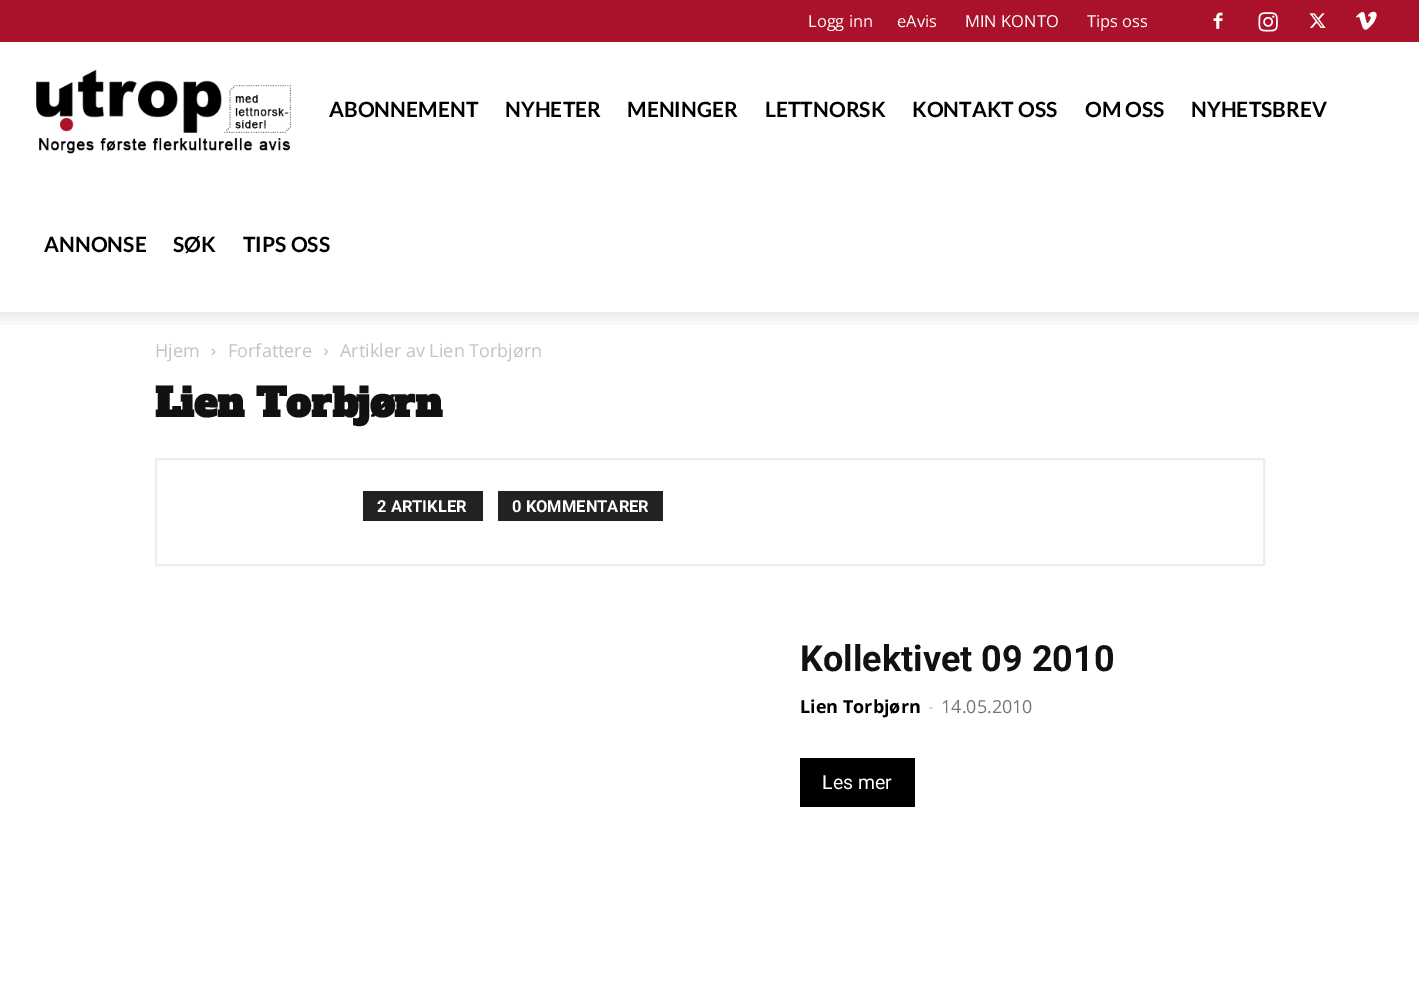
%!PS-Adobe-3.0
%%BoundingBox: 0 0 1419 1008
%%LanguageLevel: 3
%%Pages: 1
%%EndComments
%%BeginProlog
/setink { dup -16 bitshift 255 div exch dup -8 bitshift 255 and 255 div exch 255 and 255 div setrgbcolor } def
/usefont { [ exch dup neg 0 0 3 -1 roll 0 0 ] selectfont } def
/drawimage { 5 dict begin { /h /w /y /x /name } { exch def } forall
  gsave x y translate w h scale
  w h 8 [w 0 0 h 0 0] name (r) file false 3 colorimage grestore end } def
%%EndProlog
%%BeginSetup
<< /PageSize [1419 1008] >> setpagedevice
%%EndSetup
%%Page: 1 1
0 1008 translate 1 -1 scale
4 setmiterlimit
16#FFFFFF setink
0 0 1419 1008 rectfill
16#A9122A setink
0 0 1419 42 rectfill
/OpenSans-Regular 16.5 usefont
16#FFFFFF setink
[
    [(Logg inn) 808 27]
    [(eAvis) 897 27]
    [(MIN KONTO) 965 27]
    [(Tips oss) 1087 27]
] { aload pop moveto show } forall
(img1.raw) 1213 12 10 17 drawimage
(img2.raw) 1258 12 20 20 drawimage
(img3.raw) 1309 13 17 15 drawimage
(img4.raw) 1356 11 21 19 drawimage
(img5.raw) 36 69 255 85 drawimage
/Lato-Bold 21 usefont
16#000000 setink
[
    [(ABONNEMENT) 329 117]
    [(NYHETER) 505 117]
    [(MENINGER) 627 117]
    [(LETTNORSK) 765 117]
    [(KONTAKT OSS) 912 117]
    [(OM OSS) 1085 117]
    [(NYHETSBREV) 1191 117]
    [(ANNONSE) 44 252]
    [(SØK) 173 252]
    [(TIPS OSS) 243 252]
] { aload pop moveto show } forall
(img6.raw) 0 312 1419 13 drawimage
/OpenSans-Regular 18 usefont
16#C3C3C3 setink
155 357 moveto (Hjem) show
(img7.raw) 211 348 5 8 drawimage
228 357 moveto (Forfattere) show
(img8.raw) 324 348 4 8 drawimage
340 357 moveto (Artikler av Lien Torbjørn) show
/AlfaSlabOne-Bold 39 usefont
16#111111 setink
155 417 moveto (Lien Torbjørn) show
16#EDEDED setink
2 setlinewidth
156 459 1108 106 rectstroke
16#222222 setink
363 491 120 30 rectfill
/Roboto-Bold 16.5 usefont
16#FFFFFF setink
377 512 moveto (2 ARTIKLER) show
16#222222 setink
498 491 165 30 rectfill
16#FFFFFF setink
512 512 moveto (0 KOMMENTARER) show
/Roboto-Bold 36 usefont
16#111111 setink
800 671 moveto (Kollektivet 09 2010) show
/OpenSans-Bold 18 usefont
16#000000 setink
800 713 moveto (Lien Torbjørn) show
/OpenSans-Regular 18 usefont
16#CCCCCC setink
928 713 moveto (-) show
16#767676 setink
941 713 moveto (14.05.2010) show
16#000000 setink
800 758 115 49 rectfill
/Roboto-Regular 19.5 usefont
16#FFFFFF setink
822 789 moveto (Les mer) show
showpage
%%EOF
